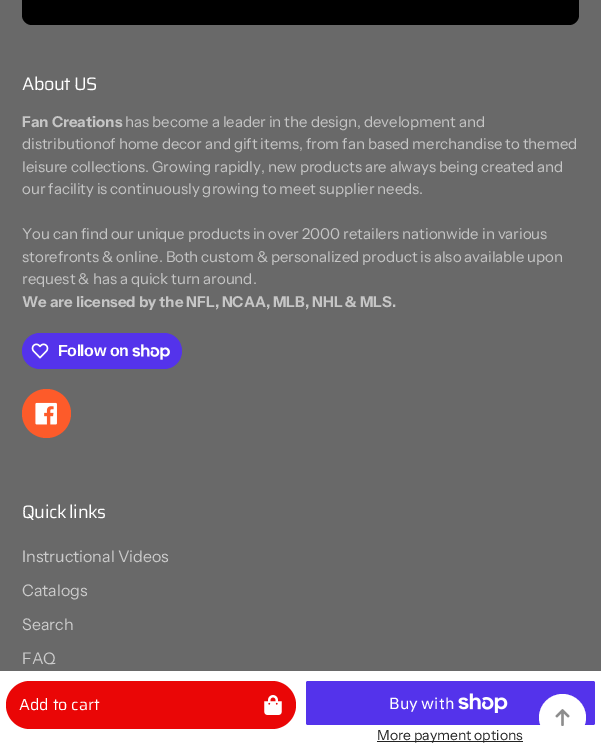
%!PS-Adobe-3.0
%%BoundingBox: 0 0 601 756
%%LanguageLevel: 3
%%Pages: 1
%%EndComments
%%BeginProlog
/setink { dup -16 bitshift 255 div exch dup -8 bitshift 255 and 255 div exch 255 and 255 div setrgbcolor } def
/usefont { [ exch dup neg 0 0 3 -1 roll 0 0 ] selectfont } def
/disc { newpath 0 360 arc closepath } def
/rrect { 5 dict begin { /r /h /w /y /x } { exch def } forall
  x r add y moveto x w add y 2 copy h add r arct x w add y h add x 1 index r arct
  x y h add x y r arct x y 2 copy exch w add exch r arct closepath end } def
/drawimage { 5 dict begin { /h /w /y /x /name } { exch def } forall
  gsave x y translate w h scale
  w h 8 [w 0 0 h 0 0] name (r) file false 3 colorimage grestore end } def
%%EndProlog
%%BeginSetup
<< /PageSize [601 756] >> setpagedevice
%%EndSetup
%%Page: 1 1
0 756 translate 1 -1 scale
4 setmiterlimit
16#696969 setink
0 0 601 756 rectfill
16#000000 setink
22 -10 557 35 10 rrect fill
/Saira-Regular 18 usefont
16#FFFFFF setink
22 90 moveto -0.5 0 (About US) ashow
/InstrumentSans-Bold 15 usefont
16#C6C6C6 setink
22 127 moveto (Fan Creations) show
/InstrumentSans-Regular 15 usefont
[
    [(has become a leader in the design, development and) 125 127]
    [(distributionof home decor and gift items, from fan based merchandise to themed) 22 149]
    [(leisure collections. Growing rapidly, new products are always being created and) 22 172]
    [(our facility is continuously growing to meet supplier needs.) 22 194]
    [(You can find our unique products in over 2000 retailers nationwide in various) 22 239]
    [(storefronts & online. Both custom & personalized product is also available upon) 22 262]
    [(request & has a quick turn around.) 22 284]
] { aload pop moveto show } forall
/InstrumentSans-Bold 15 usefont
22 307 moveto (We are licensed by the NFL, NCAA, MLB, NHL & MLS.) show
16#5433EB setink
22 333 160 36 18 rrect fill
(img1.raw) 31 343 18 16 drawimage
/LiberationSans-Bold 16 usefont
16#FFFFFF setink
58 356 moveto -0.5 0 (Follow on) ashow
(img2.raw) 132 344 38 16 drawimage
16#FD5B2A setink
46.5 413.5 24.5 disc fill
(img3.raw) 35 402 22 23 drawimage
/Saira-Regular 18 usefont
16#FFFFFF setink
22 518 moveto -0.5 0 (Quick links) ashow
/InstrumentSans-Regular 16 usefont
16#CCCCCC setink
[
    [(Instructional Videos) 22 562]
    [(Catalogs) 22 596]
    [(Search) 22 630]
    [(FAQ) 22 664]
] { aload pop moveto show } forall
16#FFFFFF setink
0 671 601 85 rectfill
16#EA0606 setink
6 681 290 48 24 rrect fill
/Saira-Regular 16 usefont
16#FFFFFF setink
19 710 moveto (Add to cart) show
(img4.raw) 264 695 18 20 drawimage
16#5433EB setink
306 681 289 44 2 rrect fill
/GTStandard-Regular 16 usefont
16#FFFFFF setink
389 709 moveto (Buy with) show
(img5.raw) 458 693 50 20 drawimage
16#232323 setink
377 741 146 1 rectfill
/InstrumentSans-Regular 14 usefont
377 740 moveto (More payment options) show
16#FFFFFF setink
562.5 717.5 23.5 disc fill
(img6.raw) 555 709 15 17 drawimage
showpage
%%EOF
